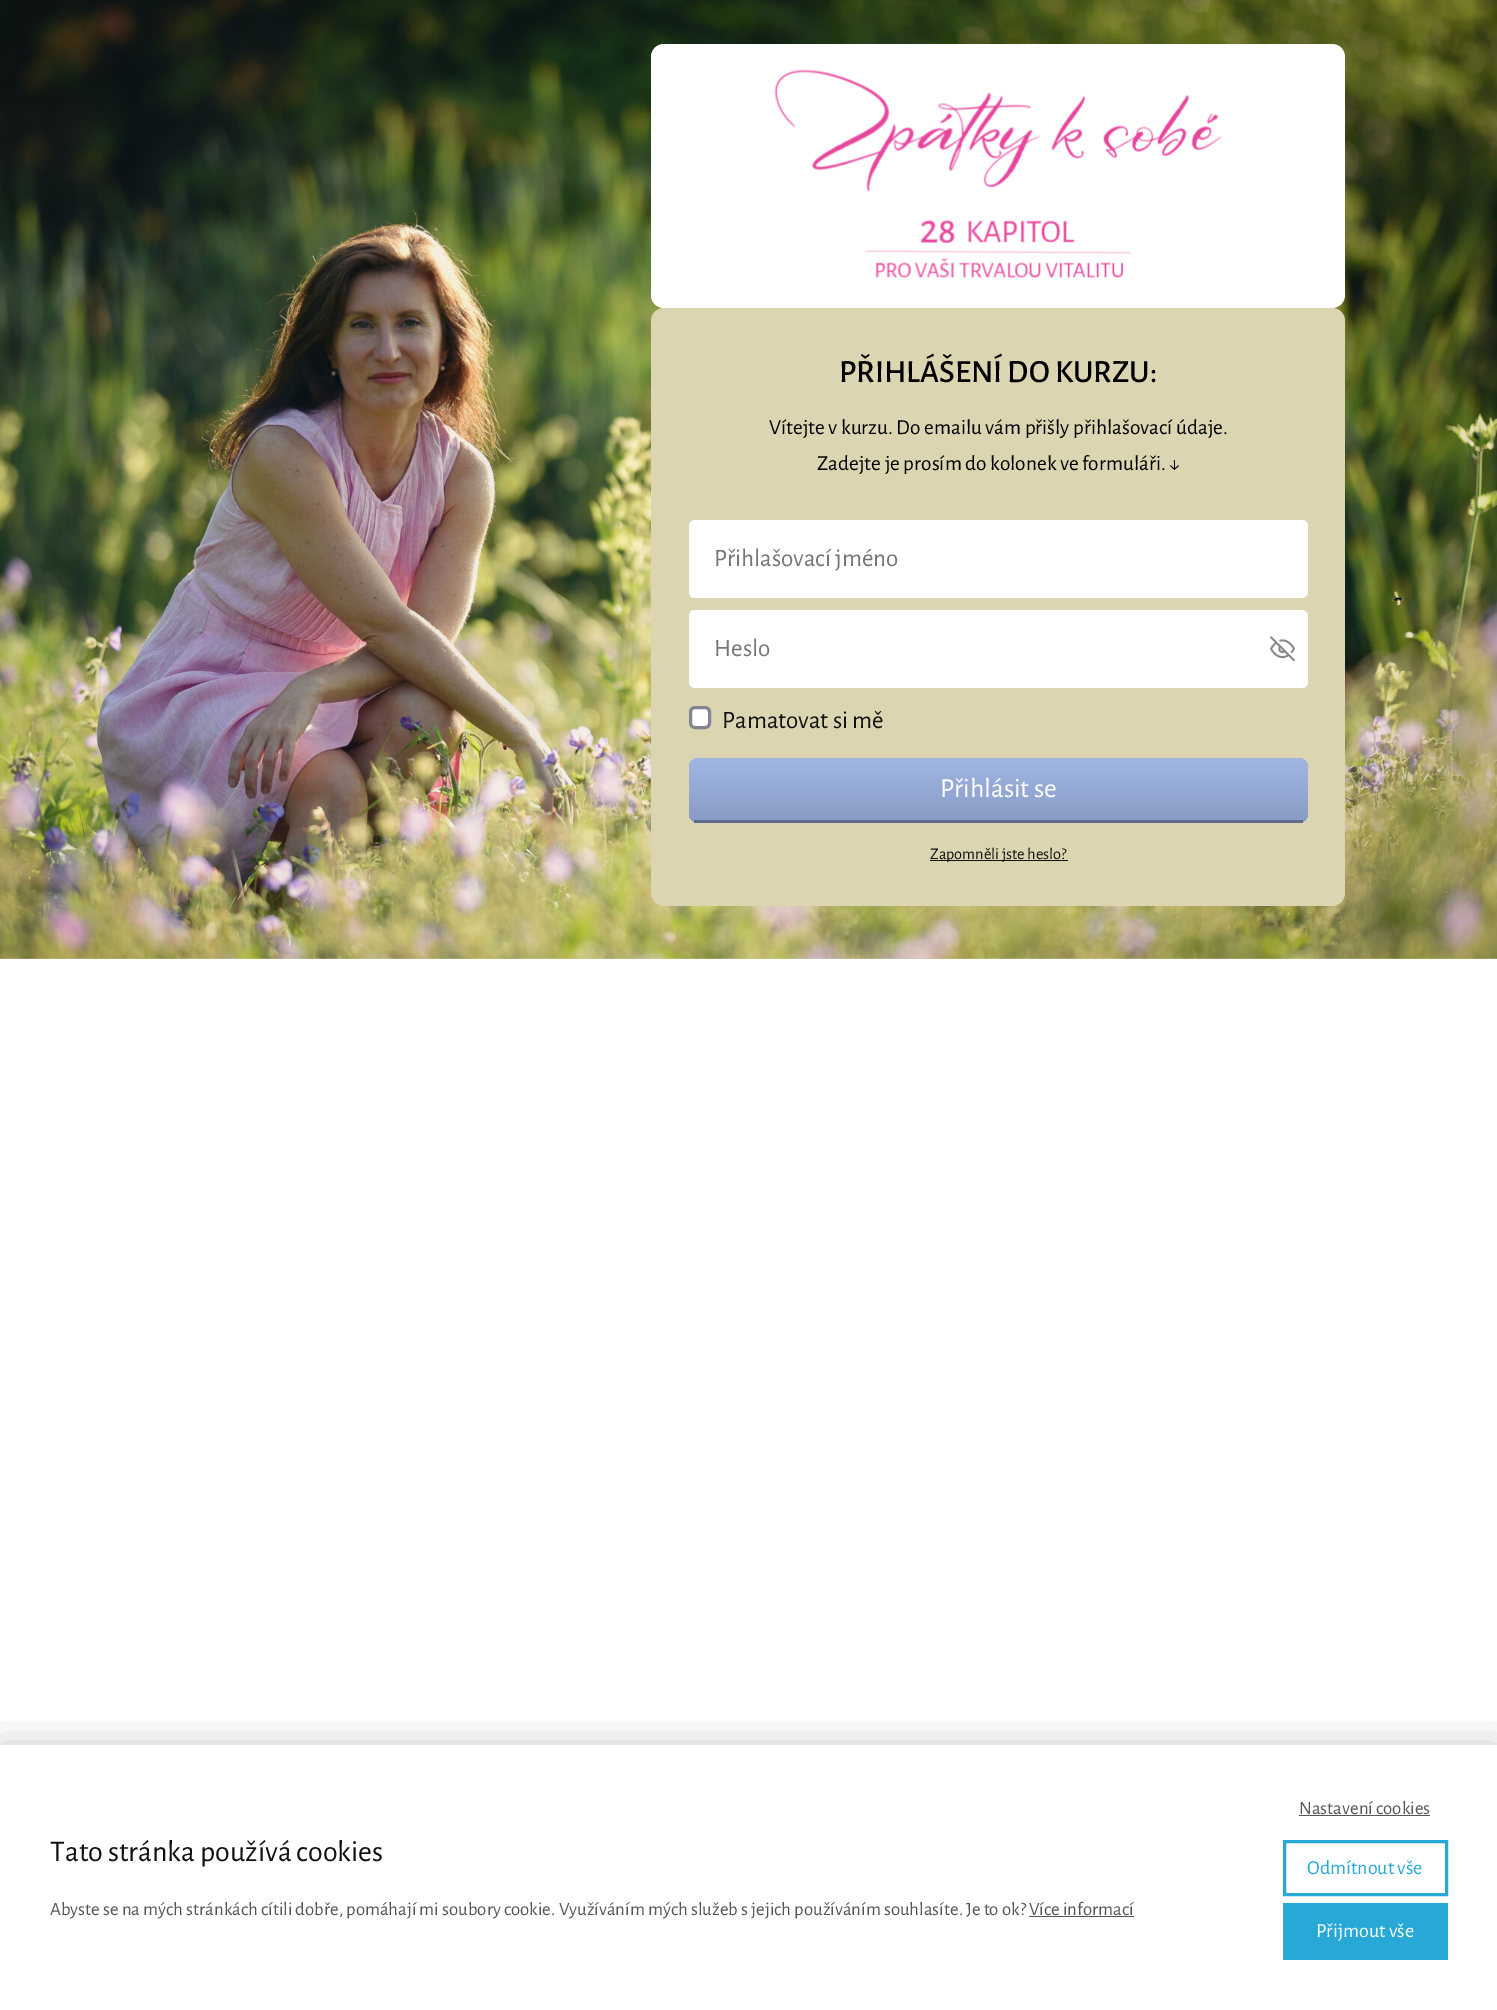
%!PS-Adobe-3.0
%%BoundingBox: 0 0 1497 2010
%%LanguageLevel: 3
%%Pages: 1
%%EndComments
%%BeginProlog
/setink { dup -16 bitshift 255 div exch dup -8 bitshift 255 and 255 div exch 255 and 255 div setrgbcolor } def
/usefont { [ exch dup neg 0 0 3 -1 roll 0 0 ] selectfont } def
/setalpha { dup .setfillconstantalpha .setstrokeconstantalpha } def
/rrect { 5 dict begin { /r /h /w /y /x } { exch def } forall
  x r add y moveto x w add y 2 copy h add r arct x w add y h add x 1 index r arct
  x y h add x y r arct x y 2 copy exch w add exch r arct closepath end } def
/softshadow { 12 dict begin { /a /b /q /h /w /y /x } { exch def } forall gsave /was 0 def
  9 -2 -9 { dup b mul 4 div /e exch def 1 sub .425 mul 2.718 exch exp 1 add a .99 .min exch div /now exch def
    1 1 now sub 1 was sub div sub setalpha /was now def
    w h .min e 2 mul add 0 gt { x e sub y e sub w e 2 mul add h e 2 mul add
      q e add b .6 mul add w h .min 2 div e add .min 0 .max rrect fill } if } for grestore end } def
/drawimage { 5 dict begin { /h /w /y /x /name } { exch def } forall
  gsave x y translate w h scale
  w h 8 [w 0 0 h 0 0] name (r) file false 3 colorimage grestore end } def
%%EndProlog
%%BeginSetup
<< /PageSize [1497 2010] /PageUsesTransparency true >> setpagedevice
%%EndSetup
%%Page: 1 1
0 .pushpdf14devicefilter
0 2010 translate 1 -1 scale
4 setmiterlimit
16#FFFFFF setink
0 0 1497 2010 rectfill
(img1.raw) 0 0 1497 959 drawimage
651 44 694 264 13 rrect fill
(img2.raw) 774 69 448 209 drawimage
16#DBD5B1 setink
651 308 694 598 13 rrect fill
/AlegreyaSans-Medium 32.5 usefont
16#000000 setink
839 382 moveto (PŘIHLÁŠENÍ DO KURZU:) show
/AlegreyaSans-Regular 21.25 usefont
769 434 moveto (Vítejte v kurzu. Do emailu vám přišly přihlašovací údaje.) show
817 470 moveto (Zadejte je prosím do kolonek ve formuláři. ↓) show
16#FFFFFF setink
689 520 619 78 6 rrect fill
/AlegreyaSans-Regular 25 usefont
16#757575 setink
714 566 moveto (Přihlašovací jméno) show
16#FFFFFF setink
689 610 619 78 6 rrect fill
16#757575 setink
714 656 moveto (Heslo) show
(img3.raw) 1270 636 25 25 drawimage
16#FFFFFF setink
690.5 707.5 19 20 4.5 rrect gsave fill grestore
16#848492 setink
3 setlinewidth
stroke
16#111111 setink
722 728 moveto (Pamatovat si mě) show
gsave 689 758 619 65 10 rrect clip newpath
<< /ShadingType 2 /ColorSpace /DeviceRGB /Coords [998 758 998 823] /Extend [true true] /Function << /FunctionType 2 /Domain [0 1] /C0 [0.631 0.714 0.89] /C1 [0.529 0.608 0.769] /N 1 >> >> shfill grestore
0.3 setalpha
16#000000 setink
694 820 609 3 rectfill
/AlegreyaSans-Regular 27.5 usefont
1 setalpha
16#FFFFFF setink
940 797 moveto (Přihlásit se) show
16#111111 setink
930 860 138 1 rectfill
/AlegreyaSans-Regular 16.25 usefont
930 859 moveto (Zapomněli jste heslo?) show
gsave
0 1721 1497 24 rectclip
16#000000 setink
0 1745 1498 265 0 19 0.2 softshadow
grestore
/AlegreyaSans-Regular 30 usefont
50 1861 moveto (Tato stránka používá cookies) show
/AlegreyaSans-Regular 18.75 usefont
16#555555 setink
50 1915 moveto (Abyste se na mých stránkách cítili dobře, pomáhají mi soubory cookie. Využíváním mých služeb s jejich používáním souhlasíte. Je to ok? Více informací) show
1029 1916 105 1 rectfill
1299 1814 moveto (Nastavení cookies) show
1299 1815 131 1 rectfill
16#27A8D7 setink
1284.5 1841.5 162 53 rectstroke
/AlegreyaSans-Regular 20 usefont
1307 1874 moveto (Odmítnout vše) show
1283 1903 165 57 rectfill
16#FFFFFF setink
1316 1937 moveto (Přijmout vše) show
.poppdf14devicefilter showpage
%%EOF
